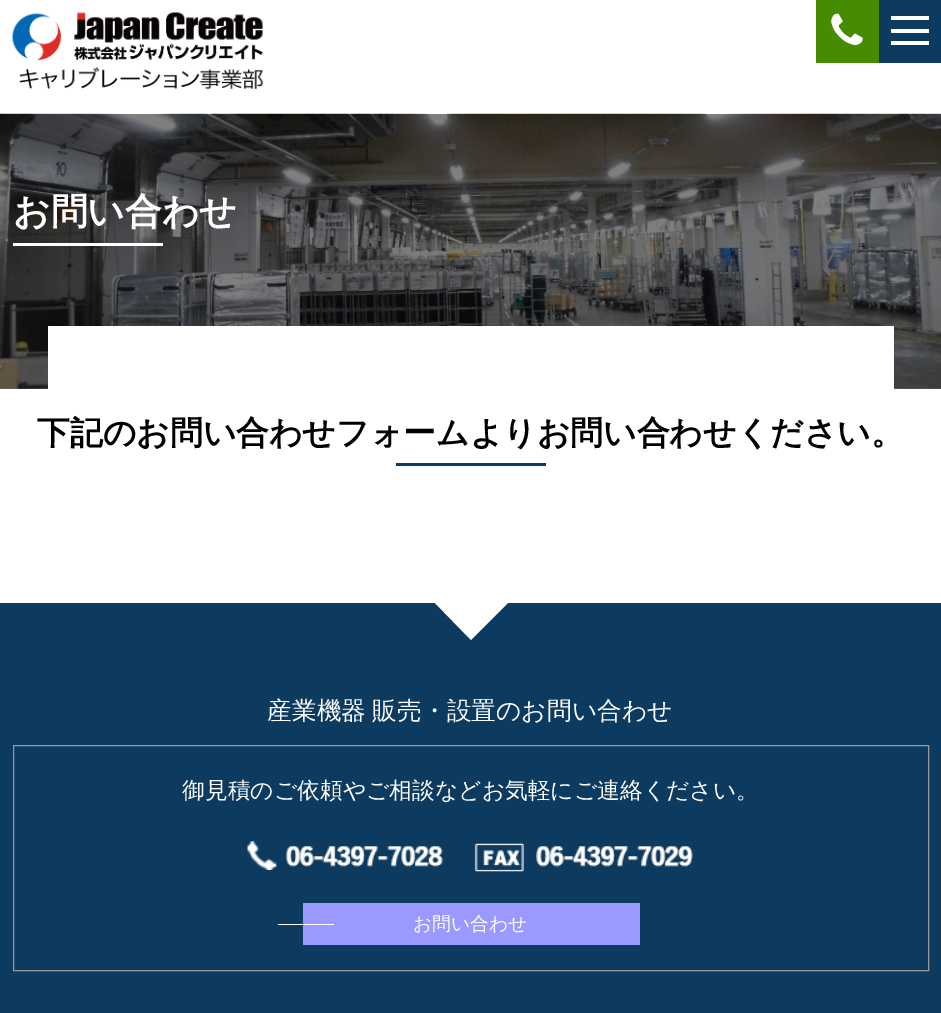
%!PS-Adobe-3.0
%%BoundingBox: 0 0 941 1013
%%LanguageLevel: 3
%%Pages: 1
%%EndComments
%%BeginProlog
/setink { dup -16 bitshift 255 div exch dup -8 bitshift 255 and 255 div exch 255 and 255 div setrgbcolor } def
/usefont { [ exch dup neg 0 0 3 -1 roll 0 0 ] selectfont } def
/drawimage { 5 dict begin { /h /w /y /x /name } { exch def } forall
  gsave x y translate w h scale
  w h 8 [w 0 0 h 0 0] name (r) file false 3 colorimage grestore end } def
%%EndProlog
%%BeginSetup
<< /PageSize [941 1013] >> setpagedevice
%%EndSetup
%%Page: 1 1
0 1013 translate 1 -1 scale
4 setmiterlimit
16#FFFFFF setink
0 0 941 1013 rectfill
(img1.raw) 12 12 251 77 drawimage
16#468C00 setink
816 0 63 63 rectfill
(img2.raw) 831 13 32 32 drawimage
[
    [879 0 62 63 16#0D3B60]
    [891 16 38 4 16#FFFFFF]
    [891 29 38 4 16#FFFFFF]
    [891 41 38 4 16#FFFFFF]
] { aload pop setink rectfill } forall
(img3.raw) 0 113 941 276 drawimage
/WenQuanYiZenHei-Bold 36.75 usefont
13 224 moveto (お問い合わせ) show
13 243 150 3 rectfill
48 326 846 63 rectfill
/WenQuanYiZenHei-Bold 32.8 usefont
16#000000 setink
37 444 moveto (下記のお問い合わせフォームよりお問い合わせください。) show
16#0D3B60 setink
396 463 150 3 rectfill
0 603 941 410 rectfill
16#FFFFFF setink
434 602 moveto 509 602 lineto 471 640 lineto closepath fill
/WenQuanYiZenHei-Medium 24.75 usefont
267 719 moveto -1 0 32 (産業機器 販売・設置のお問い合わせ) widthshow
16#999999 setink
13.5 745.5 915 225 rectstroke
/WenQuanYiZenHei-Medium 22.8 usefont
16#FFFFFF setink
182 798 moveto (御見積のご依頼やご相談などお気軽にご連絡ください。) show
(img4.raw) 247 841 196 29 drawimage
(img5.raw) 474 843 219 29 drawimage
16#9999FF setink
303 903 337 42 rectfill
16#FFFFFF setink
278 924 56 1 rectfill
/WenQuanYiZenHei-Medium 18.75 usefont
413 930 moveto (お問い合わせ) show
showpage
%%EOF
